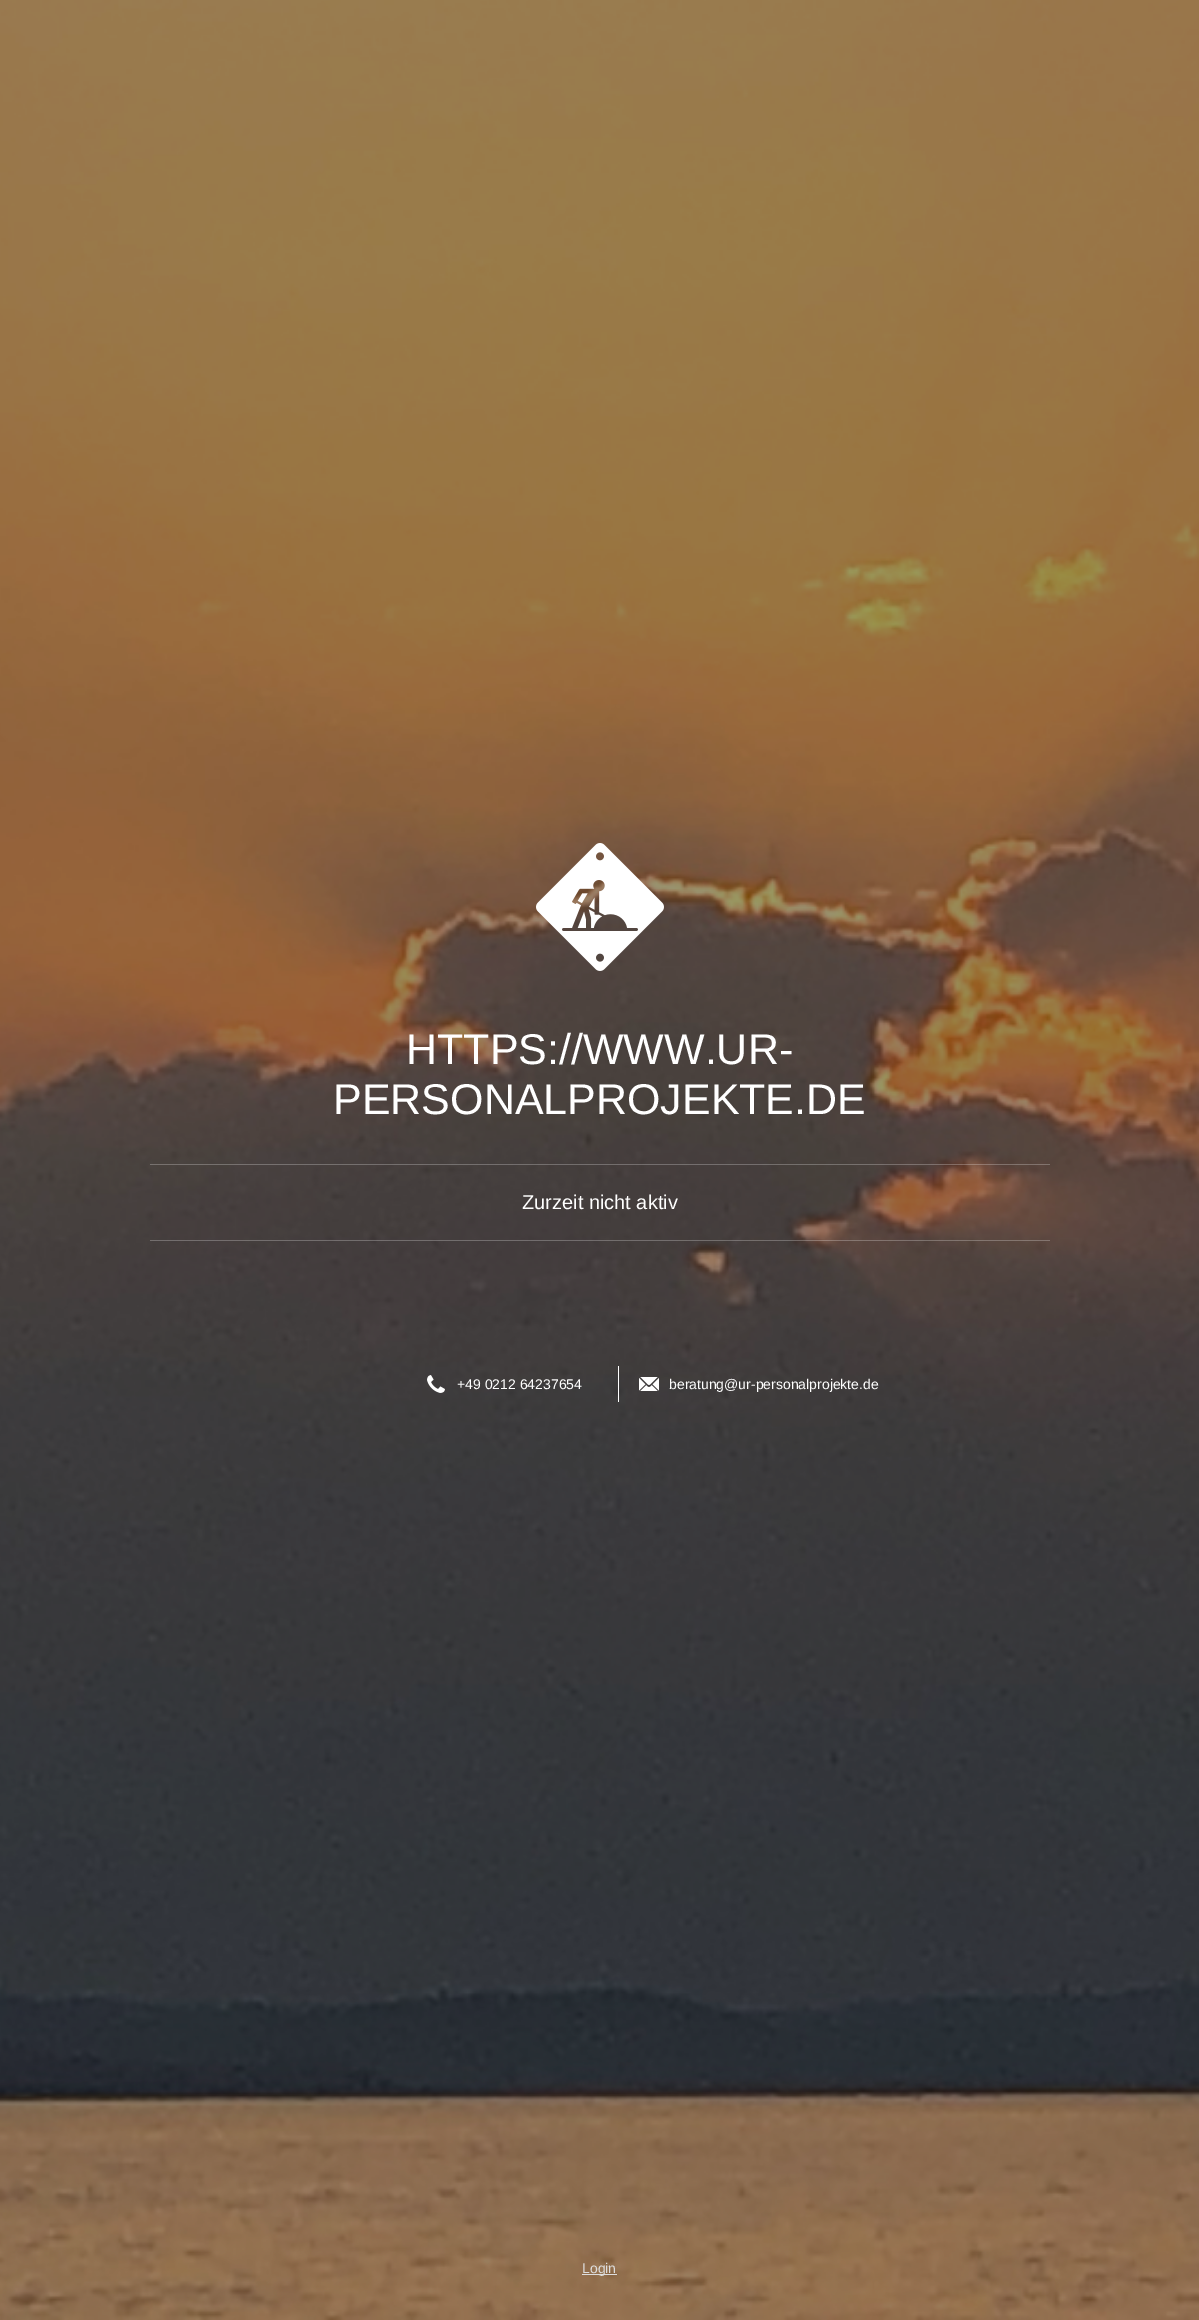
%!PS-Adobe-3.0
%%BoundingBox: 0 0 1199 2320
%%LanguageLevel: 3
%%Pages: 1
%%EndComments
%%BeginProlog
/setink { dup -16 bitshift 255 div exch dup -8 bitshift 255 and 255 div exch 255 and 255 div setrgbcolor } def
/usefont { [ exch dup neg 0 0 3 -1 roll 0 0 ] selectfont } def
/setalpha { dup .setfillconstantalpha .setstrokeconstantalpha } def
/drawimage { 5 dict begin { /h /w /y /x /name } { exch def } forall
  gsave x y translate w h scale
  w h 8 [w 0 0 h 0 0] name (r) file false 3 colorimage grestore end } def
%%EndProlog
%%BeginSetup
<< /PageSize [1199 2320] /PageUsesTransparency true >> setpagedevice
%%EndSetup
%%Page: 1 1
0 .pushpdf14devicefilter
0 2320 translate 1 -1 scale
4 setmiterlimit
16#FFFFFF setink
0 0 1199 2320 rectfill
(img1.raw) 0 0 1199 2320 drawimage
(img2.raw) 536 843 128 128 drawimage
/LiberationSans-Regular 43 usefont
406 1064 moveto (HTTPS://WWW.UR-) show
333 1114 moveto (PERSONALPROJEKTE.DE) show
0.25 setalpha
150 1164 900 1 rectfill
150 1240 900 1 rectfill
/LiberationSans-Regular 20 usefont
1 setalpha
522 1209 moveto (Zurzeit nicht aktiv) show
(img3.raw) 427 1375 18 18 drawimage
/LiberationSans-Regular 14 usefont
457 1389 moveto (+49 0212 64237654) show
618 1366 1 36 rectfill
(img4.raw) 639 1377 20 14 drawimage
669 1389 moveto (beratung@ur-personalprojekte.de) show
16#DDDDDD setink
582 2274 35 1 rectfill
582 2273 moveto (Login) show
.poppdf14devicefilter showpage
%%EOF
